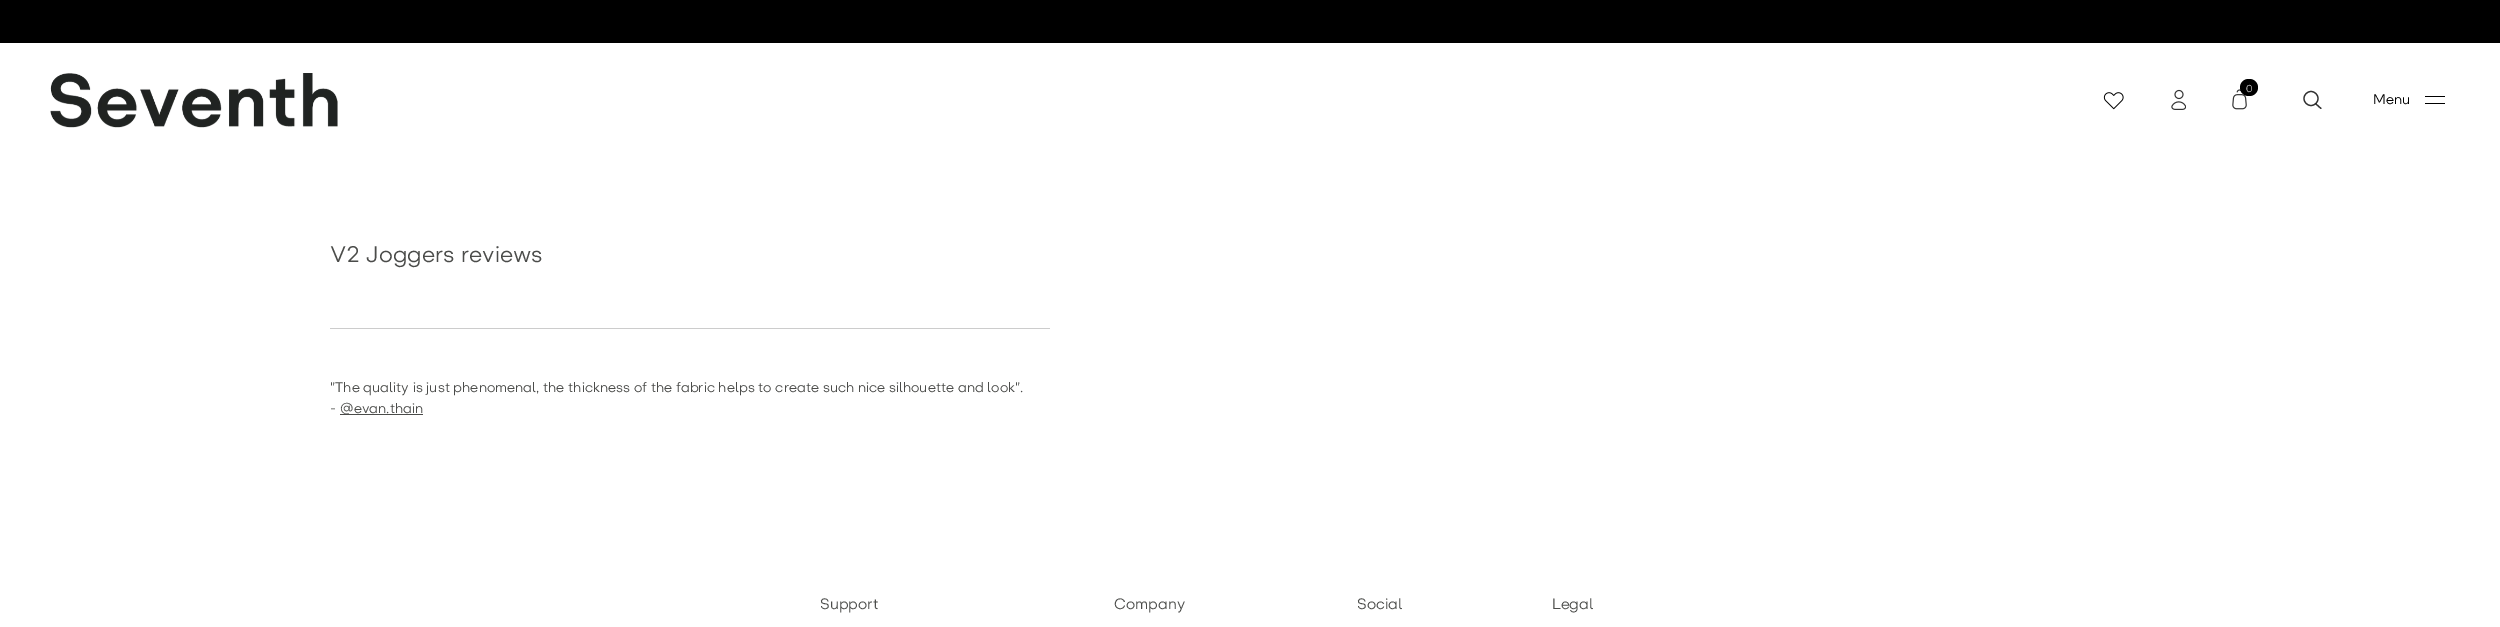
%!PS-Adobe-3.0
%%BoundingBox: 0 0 2500 627
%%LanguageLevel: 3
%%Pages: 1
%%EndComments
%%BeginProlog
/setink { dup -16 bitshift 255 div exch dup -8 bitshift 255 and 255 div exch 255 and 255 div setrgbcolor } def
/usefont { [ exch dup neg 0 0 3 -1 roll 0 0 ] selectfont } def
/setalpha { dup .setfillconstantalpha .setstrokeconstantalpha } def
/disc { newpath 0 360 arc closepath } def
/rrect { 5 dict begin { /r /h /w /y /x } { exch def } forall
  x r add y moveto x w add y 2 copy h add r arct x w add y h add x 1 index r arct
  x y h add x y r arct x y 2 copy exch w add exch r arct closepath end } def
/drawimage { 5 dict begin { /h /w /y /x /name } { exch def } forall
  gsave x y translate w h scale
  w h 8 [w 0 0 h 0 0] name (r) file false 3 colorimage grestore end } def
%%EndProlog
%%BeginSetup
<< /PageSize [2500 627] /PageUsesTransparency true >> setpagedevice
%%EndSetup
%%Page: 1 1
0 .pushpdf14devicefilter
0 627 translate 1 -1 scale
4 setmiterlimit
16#FFFFFF setink
0 0 2500 627 rectfill
16#000000 setink
0 0 2500 43 rectfill
(img1.raw) 50 73 288 55 drawimage
(img2.raw) 2103 92 21 18 drawimage
(img3.raw) 2171 89 15 21 drawimage
(img4.raw) 2232 89 15 21 drawimage
2240 79 18 17 8.5 rrect fill
/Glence-Light 10 usefont
16#FFFFFF setink
2246 92 moveto (0) show
16#333333 setink
1.2 setlinewidth
2311 98.5 7 disc stroke
0.8 setalpha
16#000000 setink
1 setlinecap
2316 104 moveto 2321 108.5 lineto stroke
/Glence-Regular 13.75 usefont
1 setalpha
2373 104 moveto (Menu) show
[
    [2425 96 20 1 16#000000]
    [2425 103 20 1 16#000000]
    [330 328 720 1 16#CCCCCC]
] { aload pop setink rectfill } forall
/Glence-Regular 22.5 usefont
16#4B4C4A setink
330 262 moveto (V2 Joggers reviews) show
/Glence-Regular 13.75 usefont
330 392 moveto ("The quality is just phenomenal, the thickness of the fabric helps to create such nice silhouette and look".) show
330 413 moveto (-) show
340 414 83 1 rectfill
340 413 moveto (@evan.thain) show
/Glence-Regular 15 usefont
[
    [(Support) 820 609]
    [(Company) 1114 609]
    [(Social) 1357 609]
    [(Legal) 1552 609]
] { aload pop moveto show } forall
.poppdf14devicefilter showpage
%%EOF
